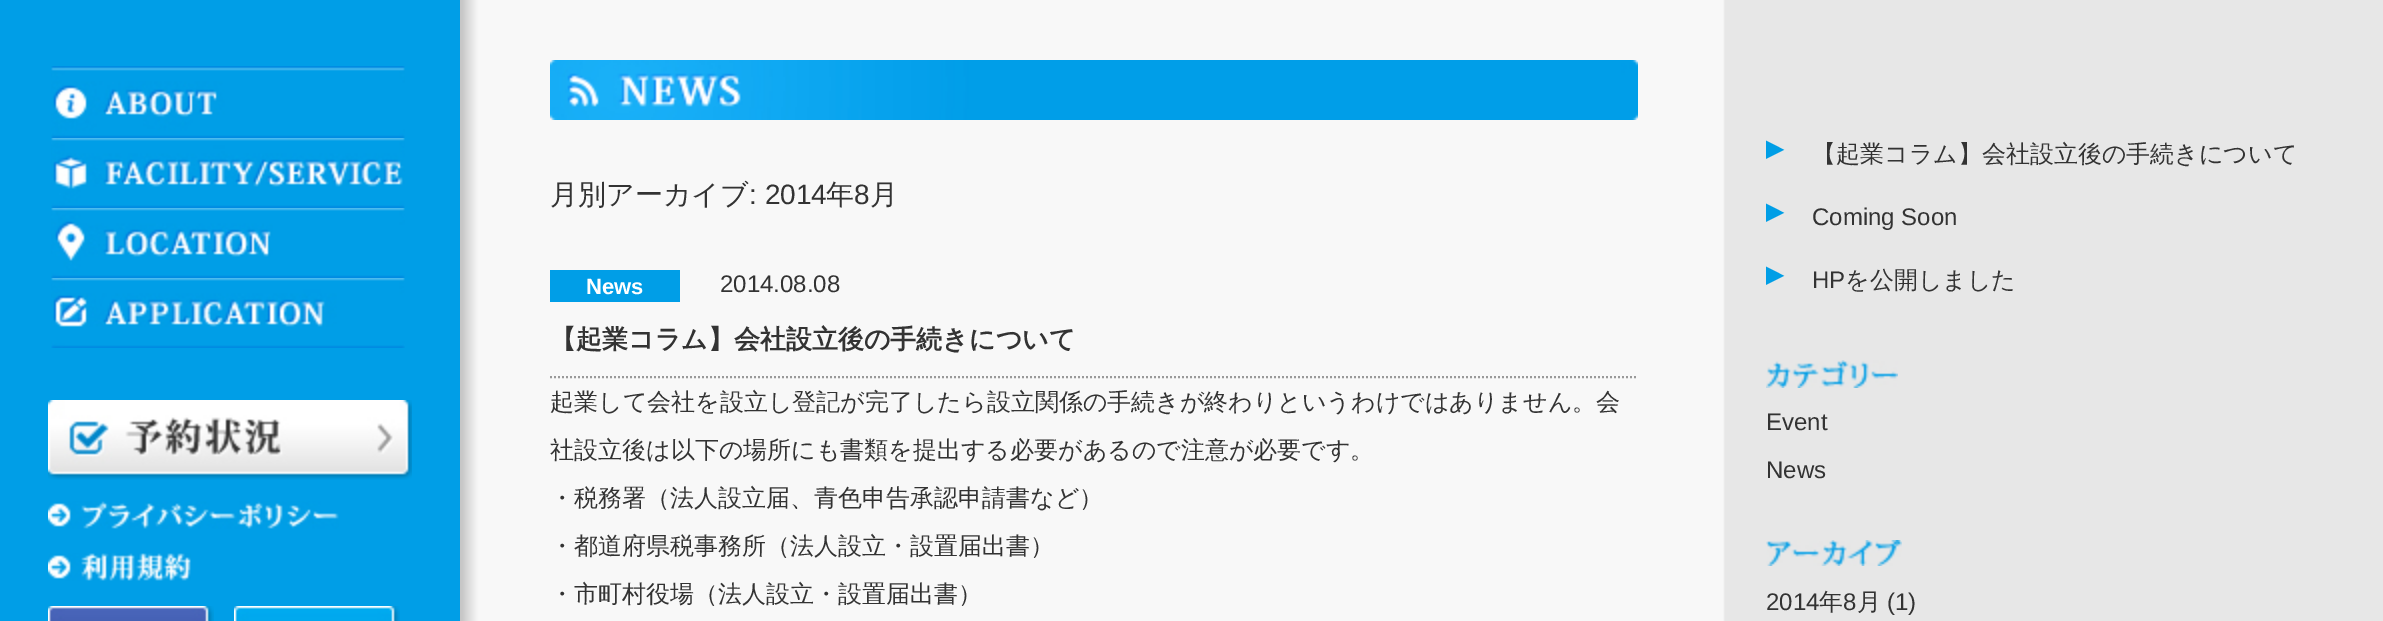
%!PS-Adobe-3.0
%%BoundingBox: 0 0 2383 621
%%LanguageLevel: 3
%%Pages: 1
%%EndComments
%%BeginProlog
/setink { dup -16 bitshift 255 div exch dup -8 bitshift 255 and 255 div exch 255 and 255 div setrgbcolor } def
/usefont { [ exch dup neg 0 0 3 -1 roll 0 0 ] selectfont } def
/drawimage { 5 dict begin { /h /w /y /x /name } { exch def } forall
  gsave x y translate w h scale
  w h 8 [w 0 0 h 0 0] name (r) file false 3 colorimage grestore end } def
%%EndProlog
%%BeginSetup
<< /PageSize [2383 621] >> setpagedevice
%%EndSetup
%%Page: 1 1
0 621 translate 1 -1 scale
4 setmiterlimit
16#009EE7 setink
0 0 2383 621 rectfill
(img1.raw) 51 66 354 72 drawimage
(img2.raw) 51 138 354 70 drawimage
(img3.raw) 51 208 354 70 drawimage
(img4.raw) 51 278 354 70 drawimage
(img5.raw) 48 400 364 80 drawimage
(img6.raw) 48 501 291 28 drawimage
(img7.raw) 48 553 143 28 drawimage
(img8.raw) 48 606 166 15 drawimage
(img9.raw) 234 606 166 15 drawimage
(img10.raw) 460 0 1266 621 drawimage
(img11.raw) 550 60 1088 60 drawimage
/WenQuanYiZenHei-Medium 28 usefont
16#333333 setink
550 204 moveto (月別アーカイブ) show
/LiberationSans-Regular 28 usefont
749 204 moveto (: 2014) show
/WenQuanYiZenHei-Medium 28 usefont
826 204 moveto (年) show
/LiberationSans-Regular 28 usefont
854 204 moveto (8) show
/WenQuanYiZenHei-Medium 28 usefont
870 204 moveto (月) show
16#009EE7 setink
550 270 130 32 rectfill
/LiberationSans-Bold 22 usefont
16#FFFFFF setink
586 294 moveto (News) show
/LiberationSans-Regular 24 usefont
16#333333 setink
720 292 moveto (2014.08.08) show
16#999999 setink
2 setlinewidth
[2 2] 0 setdash
550 377 moveto 1636 377 lineto stroke
/WenQuanYiZenHei-Bold 26 usefont
16#333333 setink
550 348 moveto (【起業コラム】会社設立後の手続きについて) show
/WenQuanYiZenHei-Medium 24 usefont
[
    [(起業して会社を設立し登記が完了したら設立関係の手続きが終わりというわけではありません。会) 550 410]
    [(社設立後は以下の場所にも書類を提出する必要があるので注意が必要です。) 550 458]
    [(・税務署（法人設立届、青色申告承認申請書など）) 550 506]
    [(・都道府県税事務所（法人設立・設置届出書）) 550 554]
    [(・市町村役場（法人設立・設置届出書）) 550 602]
] { aload pop moveto show } forall
16#E7E7E7 setink
1726 0 657 621 rectfill
/DejaVuSans-Regular 24 usefont
16#009EE6 setink
1766 156 moveto (▶) show
/WenQuanYiZenHei-Medium 24 usefont
16#333333 setink
1812 162 moveto (【起業コラム】会社設立後の手続きについて) show
/DejaVuSans-Regular 24 usefont
16#009EE6 setink
1766 219 moveto (▶) show
/LiberationSans-Regular 24 usefont
16#333333 setink
1812 225 moveto (Coming Soon) show
/DejaVuSans-Regular 24 usefont
16#009EE6 setink
1766 282 moveto (▶) show
/LiberationSans-Regular 24 usefont
16#333333 setink
1812 288 moveto (HP) show
/WenQuanYiZenHei-Medium 24 usefont
1845 288 moveto (を公開しました) show
(img12.raw) 1766 360 132 28 drawimage
/LiberationSans-Regular 24 usefont
1766 430 moveto (Event) show
1766 478 moveto (News) show
(img13.raw) 1766 540 136 26 drawimage
1766 610 moveto (2014) show
/WenQuanYiZenHei-Medium 24 usefont
1819 610 moveto (年) show
/LiberationSans-Regular 24 usefont
1843 610 moveto (8) show
/WenQuanYiZenHei-Medium 24 usefont
1857 610 moveto (月) show
/LiberationSans-Regular 24 usefont
1887 610 moveto (\(1\)) show
showpage
%%EOF
